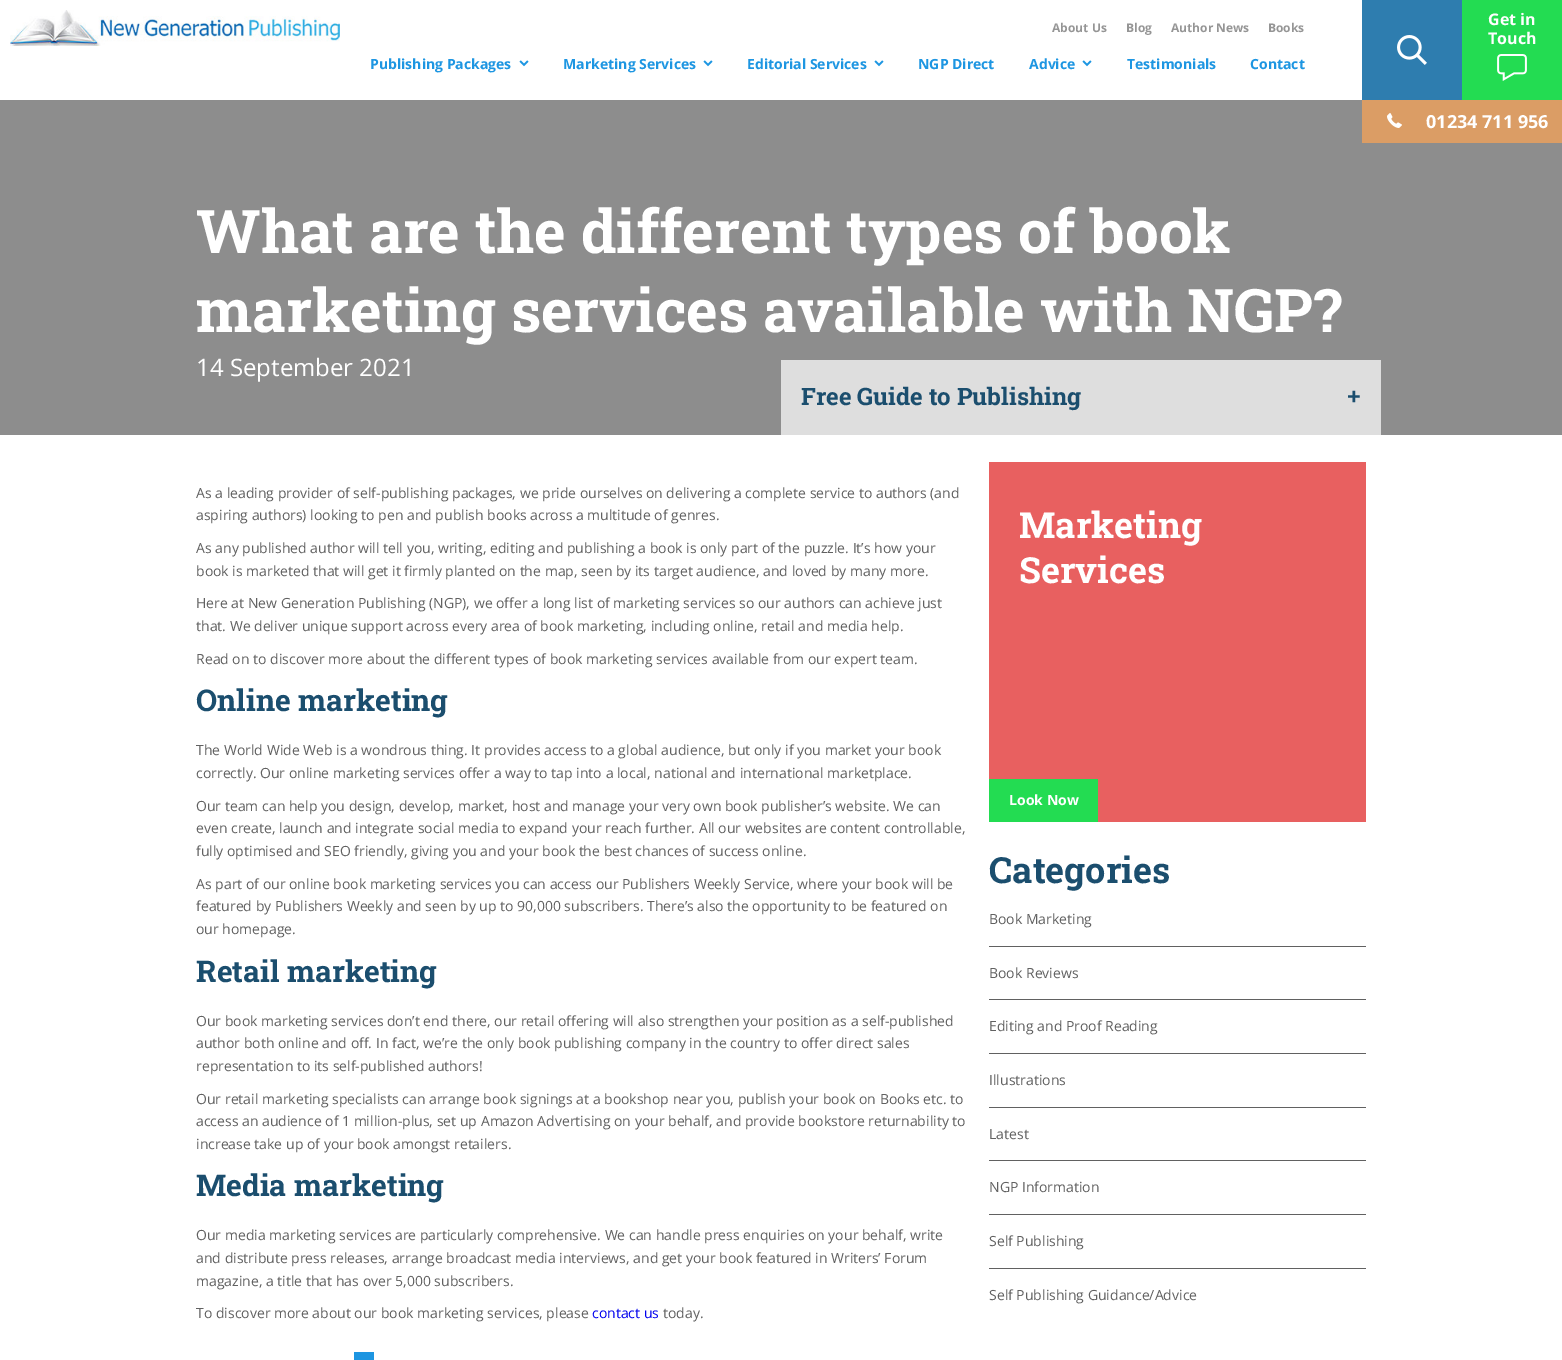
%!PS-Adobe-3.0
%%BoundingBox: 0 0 1562 1360
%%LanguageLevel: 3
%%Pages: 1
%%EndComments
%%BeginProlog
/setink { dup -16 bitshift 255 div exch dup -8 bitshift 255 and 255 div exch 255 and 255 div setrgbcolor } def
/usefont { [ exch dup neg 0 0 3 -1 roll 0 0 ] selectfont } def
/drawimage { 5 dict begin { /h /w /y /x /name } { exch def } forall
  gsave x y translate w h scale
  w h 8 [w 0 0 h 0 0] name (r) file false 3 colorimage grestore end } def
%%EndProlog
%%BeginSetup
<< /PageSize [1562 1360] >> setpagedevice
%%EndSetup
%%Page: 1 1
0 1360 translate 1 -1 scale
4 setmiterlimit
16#FFFFFF setink
0 0 1562 1360 rectfill
(img1.raw) 10 10 330 36 drawimage
/OpenSans-Bold 12 usefont
16#959595 setink
[
    [(About Us) 1052 32]
    [(Blog) 1126 32]
    [(Author News) 1171 32]
    [(Books) 1268 32]
] { aload pop moveto show } forall
/OpenSans-Bold 14 usefont
16#1D96E2 setink
370 69 moveto (Publishing Packages) show
(img2.raw) 519 60 10 7 drawimage
563 69 moveto (Marketing Services) show
(img2.raw) 703 60 10 7 drawimage
747 69 moveto (Editorial Services) show
(img2.raw) 874 60 10 7 drawimage
918 69 moveto (NGP Direct) show
1029 69 moveto (Advice) show
(img2.raw) 1082 60 10 7 drawimage
1127 69 moveto (Testimonials) show
1250 69 moveto (Contact) show
16#2E7DAF setink
1362 0 100 100 rectfill
(img3.raw) 1397 35 30 30 drawimage
16#23DC52 setink
1462 0 100 100 rectfill
/OpenSans-Bold 16 usefont
16#FFFFFF setink
1488 25 moveto (Get in) show
1488 44 moveto (Touch) show
(img4.raw) 1497 54 30 27 drawimage
16#8D8D8D setink
0 100 1562 335 rectfill
16#DB9D65 setink
1362 100 200 43 rectfill
(img5.raw) 1387 113 15 15 drawimage
/OpenSans-Bold 18 usefont
16#FFFFFF setink
1426 128 moveto (01234 711 956) show
/RobotoSlab-Bold 60 usefont
196 253 moveto (What are the different types of book) show
196 332 moveto (marketing services available with NGP?) show
/OpenSans-Regular 24 usefont
196 376 moveto (14 September 2021) show
16#DEDEDE setink
781 360 600 75 rectfill
/RobotoSlab-Bold 24 usefont
16#1B4E6E setink
801 405 moveto (Free Guide to Publishing) show
/OpenSans-Bold 24 usefont
1347 405 moveto (+) show
/OpenSans-Regular 14 usefont
16#616161 setink
[
    [(As a leading provider of self-publishing packages, we pride ourselves on delivering a complete service to authors \(and) 196 498]
    [(aspiring authors\) looking to pen and publish books across a multitude of genres.) 196 520]
    [(As any published author will tell you, writing, editing and publishing a book is only part of the puzzle. It’s how your) 196 553]
    [(book is marketed that will get it firmly planted on the map, seen by its target audience, and loved by many more.) 196 576]
    [(Here at New Generation Publishing \(NGP\), we offer a long list of marketing services so our authors can achieve just) 196 608]
    [(that. We deliver unique support across every area of book marketing, including online, retail and media help.) 196 631]
    [(Read on to discover more about the different types of book marketing services available from our expert team.) 196 664]
] { aload pop moveto show } forall
/RobotoSlab-Bold 30 usefont
16#1B4E6E setink
196 711 moveto (Online marketing) show
/OpenSans-Regular 14 usefont
16#616161 setink
[
    [(The World Wide Web is a wondrous thing. It provides access to a global audience, but only if you market your book) 196 755]
    [(correctly. Our online marketing services offer a way to tap into a local, national and international marketplace.) 196 778]
    [(Our team can help you design, develop, market, host and manage your very own book publisher’s website. We can) 196 811]
    [(even create, launch and integrate social media to expand your reach further. All our websites are content controllable,) 196 833]
    [(fully optimised and SEO friendly, giving you and your book the best chances of success online.) 196 856]
    [(As part of our online book marketing services you can access our Publishers Weekly Service, where your book will be) 196 889]
    [(featured by Publishers Weekly and seen by up to 90,000 subscribers. There’s also the opportunity to be featured on) 196 911]
    [(our homepage.) 196 934]
] { aload pop moveto show } forall
/RobotoSlab-Bold 30 usefont
16#1B4E6E setink
196 982 moveto (Retail marketing) show
/OpenSans-Regular 14 usefont
16#616161 setink
[
    [(Our book marketing services don’t end there, our retail offering will also strengthen your position as a self-published) 196 1026]
    [(author both online and off. In fact, we’re the only book publishing company in the country to offer direct sales) 196 1048]
    [(representation to its self-published authors!) 196 1071]
    [(Our retail marketing specialists can arrange book signings at a bookshop near you, publish your book on Books etc. to) 196 1104]
    [(access an audience of 1 million-plus, set up Amazon Advertising on your behalf, and provide bookstore returnability to) 196 1126]
    [(increase take up of your book amongst retailers.) 196 1149]
] { aload pop moveto show } forall
/RobotoSlab-Bold 30 usefont
16#1B4E6E setink
196 1196 moveto (Media marketing) show
/OpenSans-Regular 14 usefont
16#616161 setink
[
    [(Our media marketing services are particularly comprehensive. We can handle press enquiries on your behalf, write) 196 1240]
    [(and distribute press releases, arrange broadcast media interviews, and get your book featured in Writers’ Forum) 196 1263]
    [(magazine, a title that has over 5,000 subscribers.) 196 1286]
    [(To discover more about our book marketing services, please) 196 1318]
] { aload pop moveto show } forall
16#0000EE setink
592 1318 moveto (contact us) show
16#616161 setink
663 1318 moveto (today.) show
16#E86060 setink
989 462 377 360 rectfill
/RobotoSlab-Bold 36 usefont
16#FFFFFF setink
1019 538 moveto (Marketing) show
1019 583 moveto (Services) show
16#23DC52 setink
989 779 109 43 rectfill
/OpenSans-Bold 14 usefont
16#FFFFFF setink
1009 805 moveto (Look Now) show
/RobotoSlab-Bold 36 usefont
16#1B4E6E setink
989 883 moveto (Categories) show
16#616161 setink
989 946 377 1 rectfill
/OpenSans-Regular 14 usefont
989 924 moveto (Book Marketing) show
989 999 377 1 rectfill
989 978 moveto (Book Reviews) show
989 1053 377 1 rectfill
989 1031 moveto (Editing and Proof Reading) show
989 1107 377 1 rectfill
989 1085 moveto (Illustrations) show
989 1160 377 1 rectfill
989 1139 moveto (Latest) show
989 1214 377 1 rectfill
989 1192 moveto (NGP Information) show
989 1268 377 1 rectfill
989 1246 moveto (Self Publishing) show
989 1300 moveto (Self Publishing Guidance/Advice) show
16#1D95E1 setink
354 1352 20 8 rectfill
showpage
%%EOF
